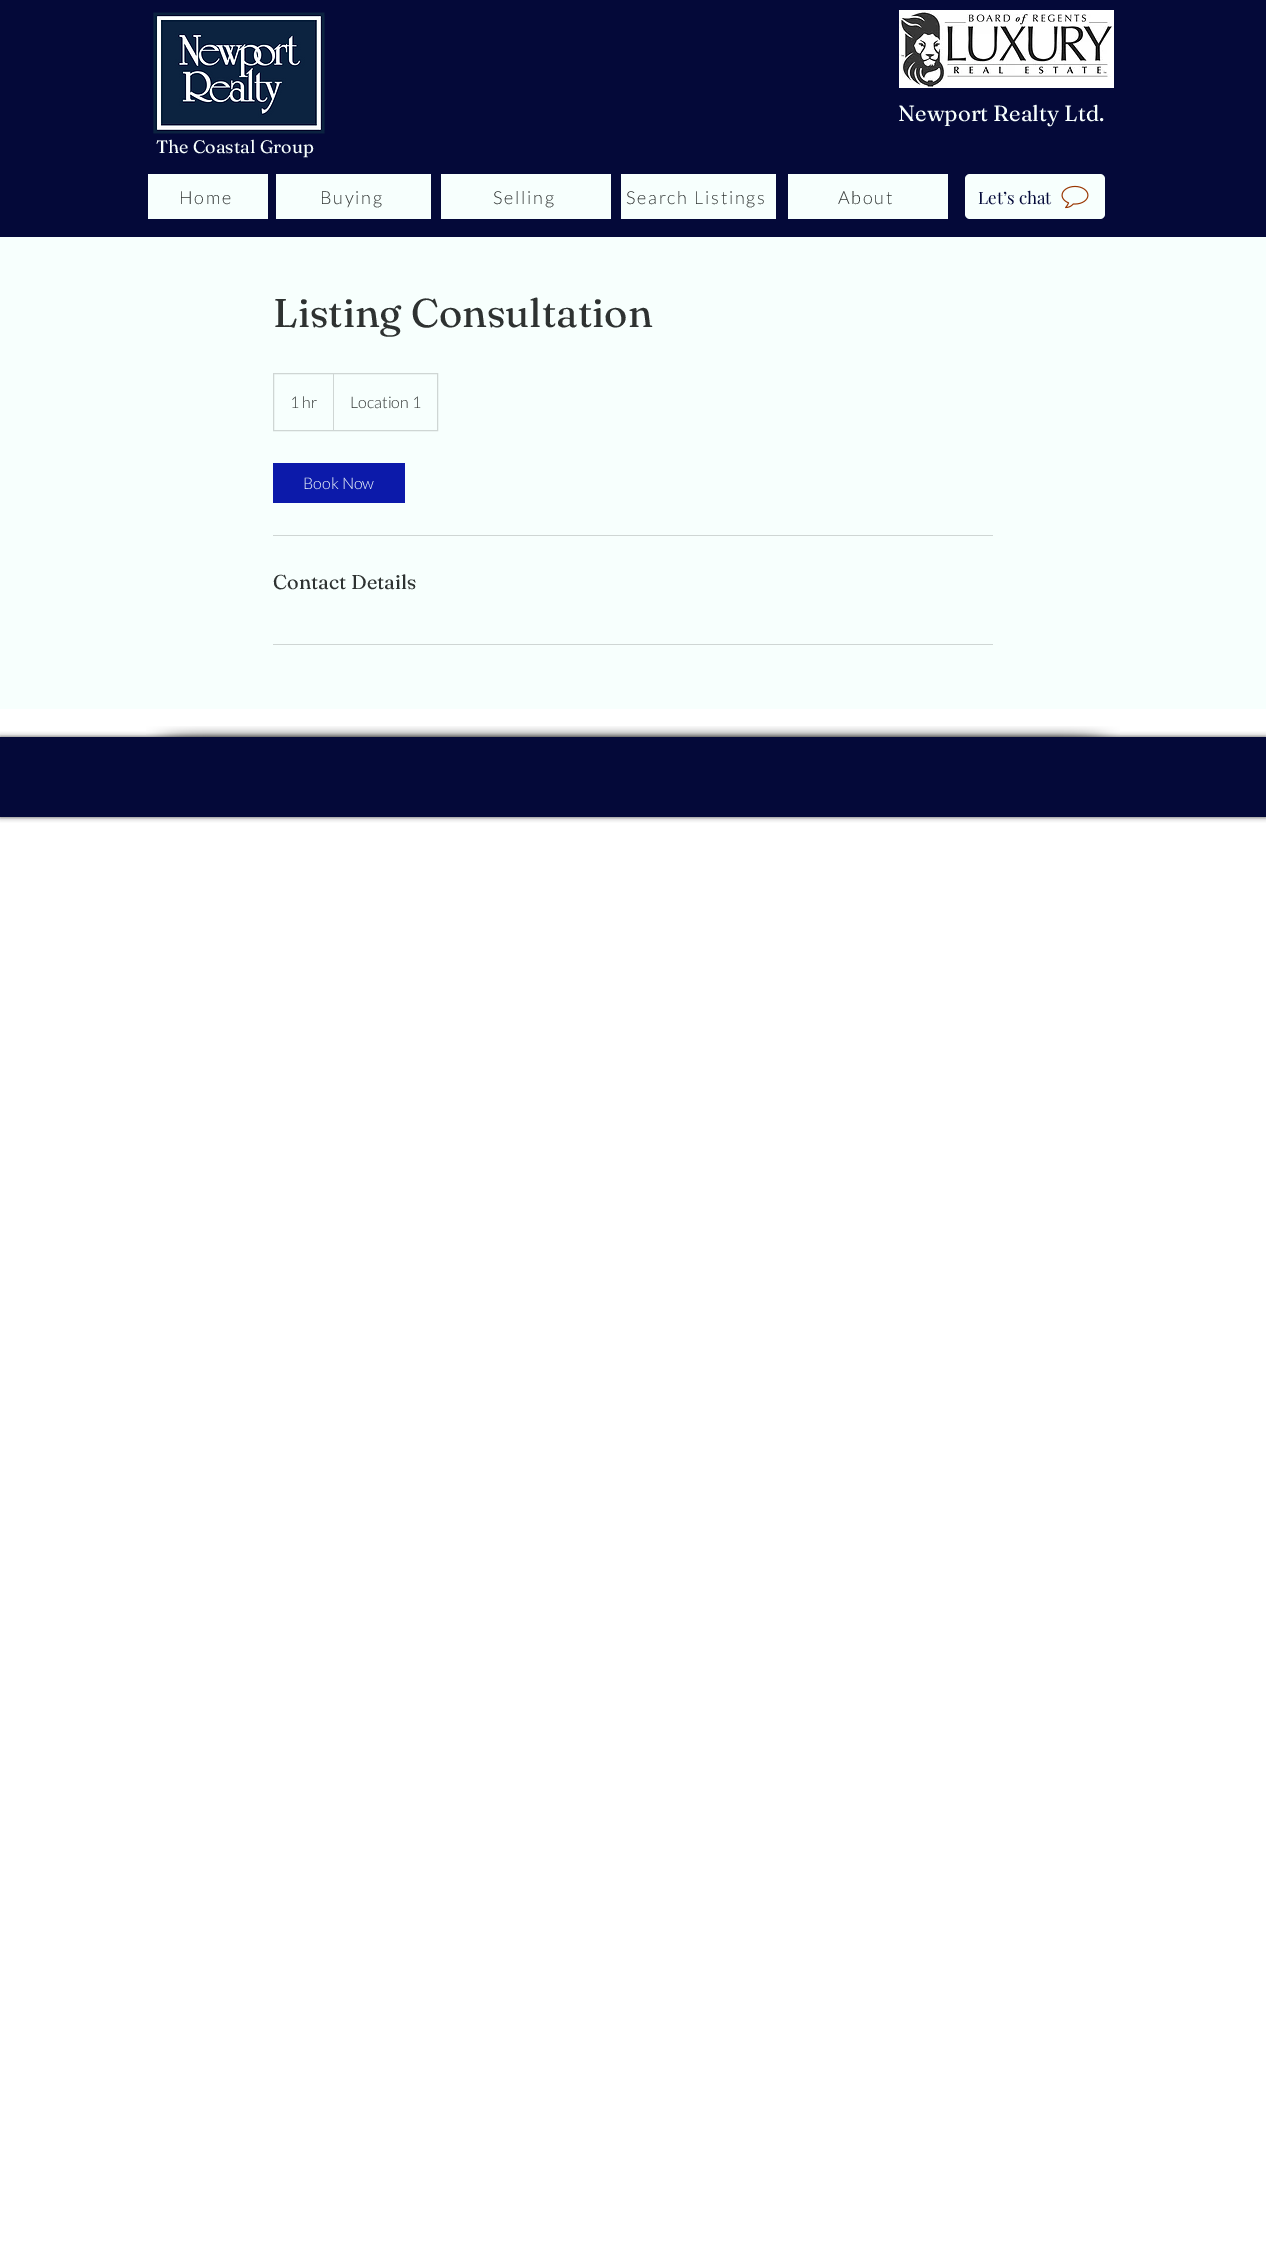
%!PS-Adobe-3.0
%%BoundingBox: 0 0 1266 2245
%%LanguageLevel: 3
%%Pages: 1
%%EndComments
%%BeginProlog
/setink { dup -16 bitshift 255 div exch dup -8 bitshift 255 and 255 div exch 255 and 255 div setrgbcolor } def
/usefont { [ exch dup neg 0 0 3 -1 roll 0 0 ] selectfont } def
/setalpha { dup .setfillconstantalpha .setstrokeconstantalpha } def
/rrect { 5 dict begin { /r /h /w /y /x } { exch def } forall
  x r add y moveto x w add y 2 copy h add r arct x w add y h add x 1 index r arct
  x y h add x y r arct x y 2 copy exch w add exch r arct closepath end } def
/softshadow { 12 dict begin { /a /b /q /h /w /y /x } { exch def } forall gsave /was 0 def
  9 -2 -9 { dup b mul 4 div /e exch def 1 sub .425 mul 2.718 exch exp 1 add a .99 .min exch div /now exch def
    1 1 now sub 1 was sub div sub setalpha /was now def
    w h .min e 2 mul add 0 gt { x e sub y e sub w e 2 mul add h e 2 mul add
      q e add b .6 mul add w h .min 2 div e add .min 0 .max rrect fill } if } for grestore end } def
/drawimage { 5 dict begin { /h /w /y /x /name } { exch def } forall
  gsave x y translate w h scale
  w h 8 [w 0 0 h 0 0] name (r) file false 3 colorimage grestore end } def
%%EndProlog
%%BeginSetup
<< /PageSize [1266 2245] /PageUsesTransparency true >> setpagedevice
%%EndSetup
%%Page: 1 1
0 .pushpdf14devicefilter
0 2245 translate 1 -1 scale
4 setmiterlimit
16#FFFFFF setink
0 0 1266 2245 rectfill
16#040939 setink
0 0 1266 237 rectfill
(img1.raw) 153 12 172 122 drawimage
(img2.raw) 899 10 215 78 drawimage
/Fraunces-Regular 22 usefont
16#F7FFFD setink
898 121 moveto (Newport Realty Ltd.) show
/Fraunces-Regular 18 usefont
156 153 moveto (The Coastal Group) show
148 174 120 45 rectfill
/Lato-Light 18 usefont
16#2E3231 setink
179 204 moveto 1.75 0 (Home) ashow
16#F7FFFD setink
276 174 155 45 rectfill
16#2E3231 setink
320 204 moveto 1.75 0 (Buying) ashow
16#F7FFFD setink
441 174 170 45 rectfill
16#2E3231 setink
493 204 moveto 1.75 0 (Selling) ashow
16#F7FFFD setink
621 174 155 45 rectfill
16#2E3231 setink
626 204 moveto 1.75 0 (Search Listings) ashow
16#F7FFFD setink
788 174 160 45 rectfill
16#2E3231 setink
838 204 moveto 1.75 0 (About) ashow
16#F7FFFD setink
965 174 140 45 5 rrect fill
/PlayfairDisplay-Regular 17 usefont
16#040939 setink
978 204 moveto (Let’s chat) show
(img3.raw) 1061 185 28 24 drawimage
16#F7FFFD setink
0 237 1266 472 rectfill
/Fraunces-Regular 40 usefont
16#2E3231 setink
273 327 moveto (Listing Consultation) show
16#CFD6D4 setink
273.5 373.5 164 57 rectstroke
/Lato-Light 16 usefont
16#2E3231 setink
290 408 moveto (1 hr) show
16#CFD6D4 setink
333 430 moveto 333 373 lineto 334 374 lineto 334 430 lineto closepath fill
16#2E3231 setink
350 408 moveto (Location 1) show
16#0C1AAA setink
273 463 132 40 rectfill
16#F7FFFD setink
303 489 moveto (Book Now) show
16#CFD6D4 setink
273 535 720 1 rectfill
/Fraunces-Regular 20 usefont
16#2E3231 setink
273 589 moveto (Contact Details) show
16#CFD6D4 setink
273 644 720 1 rectfill
16#000000 setink
0 737 1266 80 0 2.5 0.7 softshadow
(img4.raw) 146 726 97 11 drawimage
(img5.raw) 243 726 780 11 drawimage
(img6.raw) 1023 726 97 11 drawimage
16#040939 setink
0 737 1266 80 rectfill
.poppdf14devicefilter showpage
%%EOF
